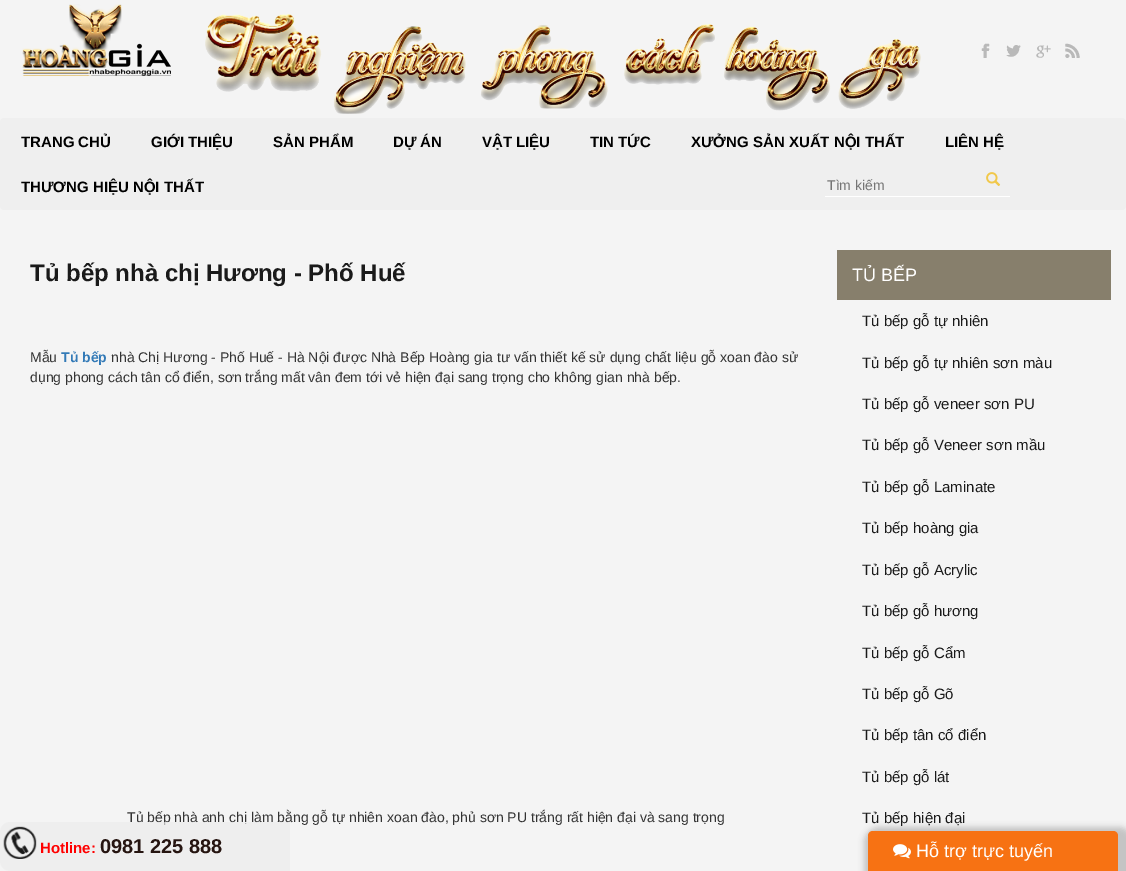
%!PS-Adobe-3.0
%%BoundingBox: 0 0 1126 871
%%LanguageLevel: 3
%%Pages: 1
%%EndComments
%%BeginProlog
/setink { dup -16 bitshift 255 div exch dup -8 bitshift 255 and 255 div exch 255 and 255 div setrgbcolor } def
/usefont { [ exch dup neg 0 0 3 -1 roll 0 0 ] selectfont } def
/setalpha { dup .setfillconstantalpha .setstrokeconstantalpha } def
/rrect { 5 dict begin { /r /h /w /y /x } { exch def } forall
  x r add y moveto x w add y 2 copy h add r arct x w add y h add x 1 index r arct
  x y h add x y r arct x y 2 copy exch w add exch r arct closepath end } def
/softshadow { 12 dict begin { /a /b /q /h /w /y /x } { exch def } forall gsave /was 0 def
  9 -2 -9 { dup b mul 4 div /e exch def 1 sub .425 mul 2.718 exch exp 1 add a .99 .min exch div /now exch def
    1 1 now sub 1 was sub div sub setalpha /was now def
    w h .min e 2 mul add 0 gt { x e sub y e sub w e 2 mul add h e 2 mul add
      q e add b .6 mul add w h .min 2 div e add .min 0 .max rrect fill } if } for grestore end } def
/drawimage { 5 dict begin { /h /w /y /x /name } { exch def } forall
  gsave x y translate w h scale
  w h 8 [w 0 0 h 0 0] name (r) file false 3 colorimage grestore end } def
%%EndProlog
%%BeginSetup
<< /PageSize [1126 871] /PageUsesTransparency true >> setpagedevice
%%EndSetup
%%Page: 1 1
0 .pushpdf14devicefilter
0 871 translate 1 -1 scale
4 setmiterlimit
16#F4F4F4 setink
0 0 1126 871 rectfill
(img1.raw) 22 4 149 72 drawimage
(img2.raw) 205 14 716 100 drawimage
(img3.raw) 981 43 9 15 drawimage
(img4.raw) 1006 45 15 12 drawimage
(img5.raw) 1036 45 15 13 drawimage
(img6.raw) 1065 43 15 15 drawimage
16#EFEFEF setink
0 118 1126 92 4 rrect fill
/LiberationSans-Bold 15 usefont
16#000000 setink
[
    [(TRANG CHỦ) 21 147]
    [(GIỚI THIỆU) 151 147]
    [(SẢN PHẨM) 273 147]
    [(DỰ ÁN) 393 147]
    [(VẬT LIỆU) 482 147]
    [(TIN TỨC) 590 147]
    [(XƯỞNG SẢN XUẤT NỘI THẤT) 691 147]
    [(LIÊN HỆ) 945 147]
    [(THƯƠNG HIỆU NỘI THẤT) 21 192]
] { aload pop moveto show } forall
16#FFFFFF setink
825 196 185 1 rectfill
/LiberationSans-Regular 14 usefont
16#757575 setink
827 190 moveto (Tìm kiếm) show
(img7.raw) 986 172 15 14 drawimage
/LiberationSans-Bold 24 usefont
16#1A1A1A setink
30 281 moveto (Tủ bếp nhà chị Hương - Phố Huế) show
/LiberationSans-Regular 14 usefont
16#333333 setink
30 362 moveto (Mẫu) show
/LiberationSans-Bold 14 usefont
16#337AB7 setink
61 362 moveto (Tủ bếp) show
/LiberationSans-Regular 14 usefont
16#333333 setink
[
    [(nhà Chị Hương - Phố Huế - Hà Nội được Nhà Bếp Hoàng gia tư vấn thiết kế sử dụng chất liệu gỗ xoan đào sử) 111 362]
    [(dụng phong cách tân cổ điển, sơn trắng mất vân đem tới vẻ hiện đại sang trọng cho không gian nhà bếp.) 30 382]
    [(Tủ bếp nhà anh chị làm bằng gỗ tự nhiên xoan đào, phủ sơn PU trắng rất hiện đại và sang trọng) 127 822]
] { aload pop moveto show } forall
16#877F6C setink
837 250 274 50 rectfill
/LiberationSans-Regular 18 usefont
16#FFFFFF setink
852 281 moveto (TỦ BẾP) show
/LiberationSans-Regular 15 usefont
16#1A1A1A setink
[
    [(Tủ bếp gỗ tự nhiên) 862 326]
    [(Tủ bếp gỗ tự nhiên sơn màu) 862 368]
    [(Tủ bếp gỗ veneer sơn PU) 862 409]
    [(Tủ bếp gỗ Veneer sơn mầu) 862 450]
    [(Tủ bếp gỗ Laminate) 862 492]
    [(Tủ bếp hoàng gia) 862 533]
    [(Tủ bếp gỗ Acrylic) 862 575]
    [(Tủ bếp gỗ hương) 862 616]
    [(Tủ bếp gỗ Cẩm) 862 658]
    [(Tủ bếp gỗ Gõ) 862 699]
    [(Tủ bếp tân cổ điển) 862 740]
    [(Tủ bếp gỗ lát) 862 782]
    [(Tủ bếp hiện đại) 862 823]
] { aload pop moveto show } forall
16#000000 setink
864 827 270 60 15 3 0.2 softshadow
16#F77213 setink
873 831 moveto 1113 831 lineto 1116 831 1118 833 1118 836 curveto 1118 871 lineto 868 871 lineto 868 836 lineto 868 833 870 831 873 831 curveto closepath fill
(img8.raw) 893 844 18 15 drawimage
/LiberationSans-Regular 18 usefont
16#FFFFFF setink
916 857 moveto (Hỗ trợ trực tuyến) show
0.69 setalpha
16#ECECEC setink
10 822 moveto 290 822 lineto 290 871 lineto 10 871 lineto 4.5 871 0 866.5 0 861 curveto 0 832 lineto 0 826.5 4.5 822 10 822 curveto closepath fill
1 setalpha
(img9.raw) 3 826 34 33 drawimage
/LiberationSans-Bold 15 usefont
16#FF0000 setink
40 853 moveto (Hotline:) show
/LiberationSans-Bold 20 usefont
16#261511 setink
100 853 moveto (0981 225 888) show
.poppdf14devicefilter showpage
%%EOF
